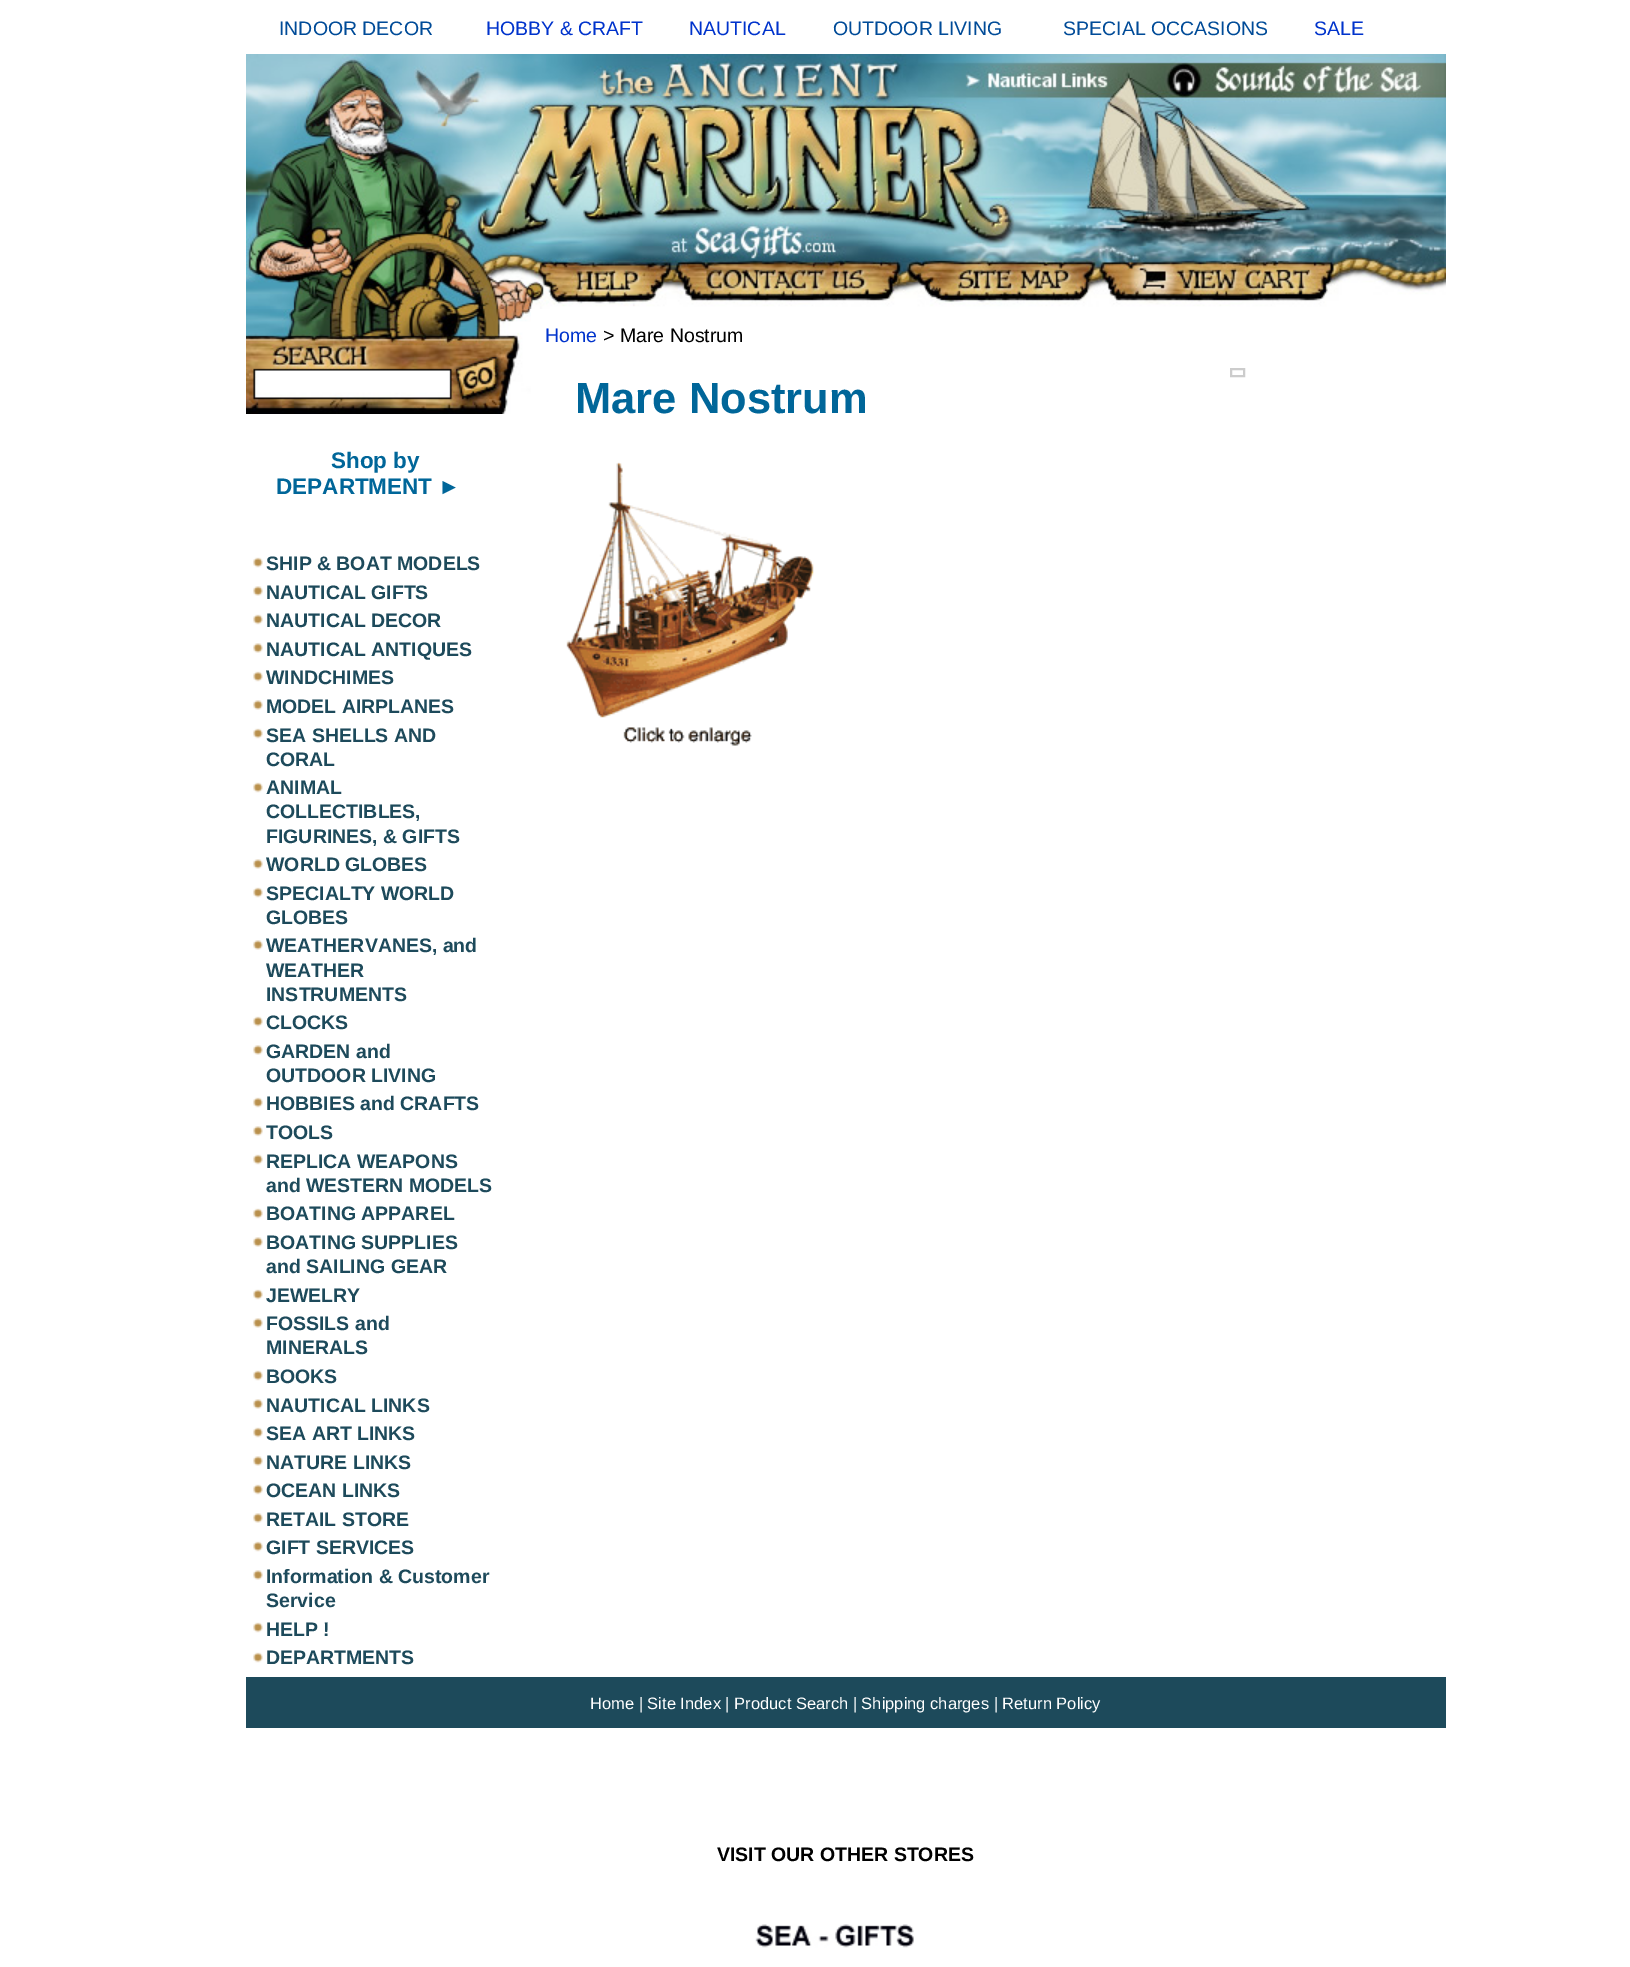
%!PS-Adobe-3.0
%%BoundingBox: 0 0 1630 1967
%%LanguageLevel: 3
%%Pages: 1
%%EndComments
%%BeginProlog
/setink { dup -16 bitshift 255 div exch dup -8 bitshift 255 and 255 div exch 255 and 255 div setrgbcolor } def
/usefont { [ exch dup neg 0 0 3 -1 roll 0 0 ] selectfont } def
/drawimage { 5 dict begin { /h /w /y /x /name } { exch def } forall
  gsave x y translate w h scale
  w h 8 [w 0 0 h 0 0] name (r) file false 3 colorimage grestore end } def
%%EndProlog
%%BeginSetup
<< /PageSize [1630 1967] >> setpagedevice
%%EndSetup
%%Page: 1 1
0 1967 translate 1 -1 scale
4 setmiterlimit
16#FFFFFF setink
0 0 1630 1967 rectfill
/LiberationSans-Regular 19.5 usefont
16#004B98 setink
279 35 moveto (INDOOR DECOR) show
16#0033CC setink
486 35 moveto (HOBBY & CRAFT) show
689 35 moveto (NAUTICAL) show
16#004B98 setink
833 35 moveto (OUTDOOR LIVING) show
1063 35 moveto (SPECIAL OCCASIONS) show
16#0033CC setink
1314 35 moveto (SALE) show
(img1.raw) 246 54 1200 255 drawimage
545 342 moveto (Home) show
16#000000 setink
603 342 moveto (> Mare Nostrum) show
16#CCCCCC setink
2 setlinewidth
1231 369 13 7 rectstroke
/LiberationSans-Bold 43.5 usefont
16#006699 setink
575 413 moveto (Mare Nostrum) show
(img2.raw) 566 462 248 284 drawimage
(img3.raw) 246 309 285 105 drawimage
/LiberationSans-Bold 22.5 usefont
331 468 moveto (Shop by) show
276 494 moveto (DEPARTMENT ►) show
(img4.raw) 253 557 10 11 drawimage
/LiberationSans-Bold 19.5 usefont
16#1D4A5B setink
266 570 moveto (SHIP & BOAT MODELS) show
(img5.raw) 253 586 10 10 drawimage
266 599 moveto (NAUTICAL GIFTS) show
(img4.raw) 253 614 10 11 drawimage
266 627 moveto (NAUTICAL DECOR) show
(img5.raw) 253 643 10 10 drawimage
266 656 moveto (NAUTICAL ANTIQUES) show
(img4.raw) 253 671 10 11 drawimage
266 684 moveto (WINDCHIMES) show
(img5.raw) 253 700 10 10 drawimage
266 713 moveto (MODEL AIRPLANES) show
(img4.raw) 253 728 10 11 drawimage
266 742 moveto (SEA SHELLS AND) show
266 766 moveto (CORAL) show
(img4.raw) 253 782 10 11 drawimage
[
    [(ANIMAL) 266 794]
    [(COLLECTIBLES,) 266 818]
    [(FIGURINES, & GIFTS) 266 843]
] { aload pop moveto show } forall
(img5.raw) 253 859 10 10 drawimage
266 871 moveto (WORLD GLOBES) show
(img4.raw) 253 887 10 11 drawimage
266 900 moveto (SPECIALTY WORLD) show
266 924 moveto (GLOBES) show
(img5.raw) 253 940 10 10 drawimage
[
    [(WEATHERVANES, and) 266 952]
    [(WEATHER) 266 977]
    [(INSTRUMENTS) 266 1001]
] { aload pop moveto show } forall
(img4.raw) 253 1016 10 11 drawimage
266 1029 moveto (CLOCKS) show
(img5.raw) 253 1045 10 10 drawimage
266 1058 moveto (GARDEN and) show
266 1082 moveto (OUTDOOR LIVING) show
(img4.raw) 253 1097 10 11 drawimage
266 1110 moveto (HOBBIES and CRAFTS) show
(img5.raw) 253 1126 10 10 drawimage
266 1139 moveto (TOOLS) show
(img4.raw) 253 1154 10 11 drawimage
266 1168 moveto (REPLICA WEAPONS) show
266 1192 moveto (and WESTERN MODELS) show
(img4.raw) 253 1208 10 11 drawimage
266 1220 moveto (BOATING APPAREL) show
(img5.raw) 253 1237 10 10 drawimage
266 1249 moveto (BOATING SUPPLIES) show
266 1273 moveto (and SAILING GEAR) show
(img4.raw) 253 1289 10 11 drawimage
266 1302 moveto (JEWELRY) show
(img5.raw) 253 1318 10 10 drawimage
266 1330 moveto (FOSSILS and) show
266 1354 moveto (MINERALS) show
(img4.raw) 253 1370 10 11 drawimage
266 1383 moveto (BOOKS) show
(img5.raw) 253 1399 10 10 drawimage
266 1412 moveto (NAUTICAL LINKS) show
(img4.raw) 253 1427 10 11 drawimage
266 1440 moveto (SEA ART LINKS) show
(img5.raw) 253 1456 10 10 drawimage
266 1469 moveto (NATURE LINKS) show
(img4.raw) 253 1484 10 11 drawimage
266 1497 moveto (OCEAN LINKS) show
(img5.raw) 253 1513 10 10 drawimage
266 1526 moveto (RETAIL STORE) show
(img4.raw) 253 1541 10 11 drawimage
266 1554 moveto (GIFT SERVICES) show
(img5.raw) 253 1570 10 10 drawimage
266 1583 moveto (Information & Customer) show
266 1607 moveto (Service) show
(img4.raw) 253 1622 10 11 drawimage
266 1636 moveto (HELP !) show
(img4.raw) 253 1652 10 11 drawimage
266 1664 moveto (DEPARTMENTS) show
246 1677 1200 51 rectfill
/LiberationSans-Regular 16.5 usefont
16#FFFFFF setink
590 1709 moveto (Home | Site Index | Product Search | Shipping charges | Return Policy) show
/LiberationSans-Bold 19.5 usefont
16#000000 setink
717 1861 moveto (VISIT OUR OTHER STORES) show
(img6.raw) 755 1924 159 24 drawimage
showpage
%%EOF
